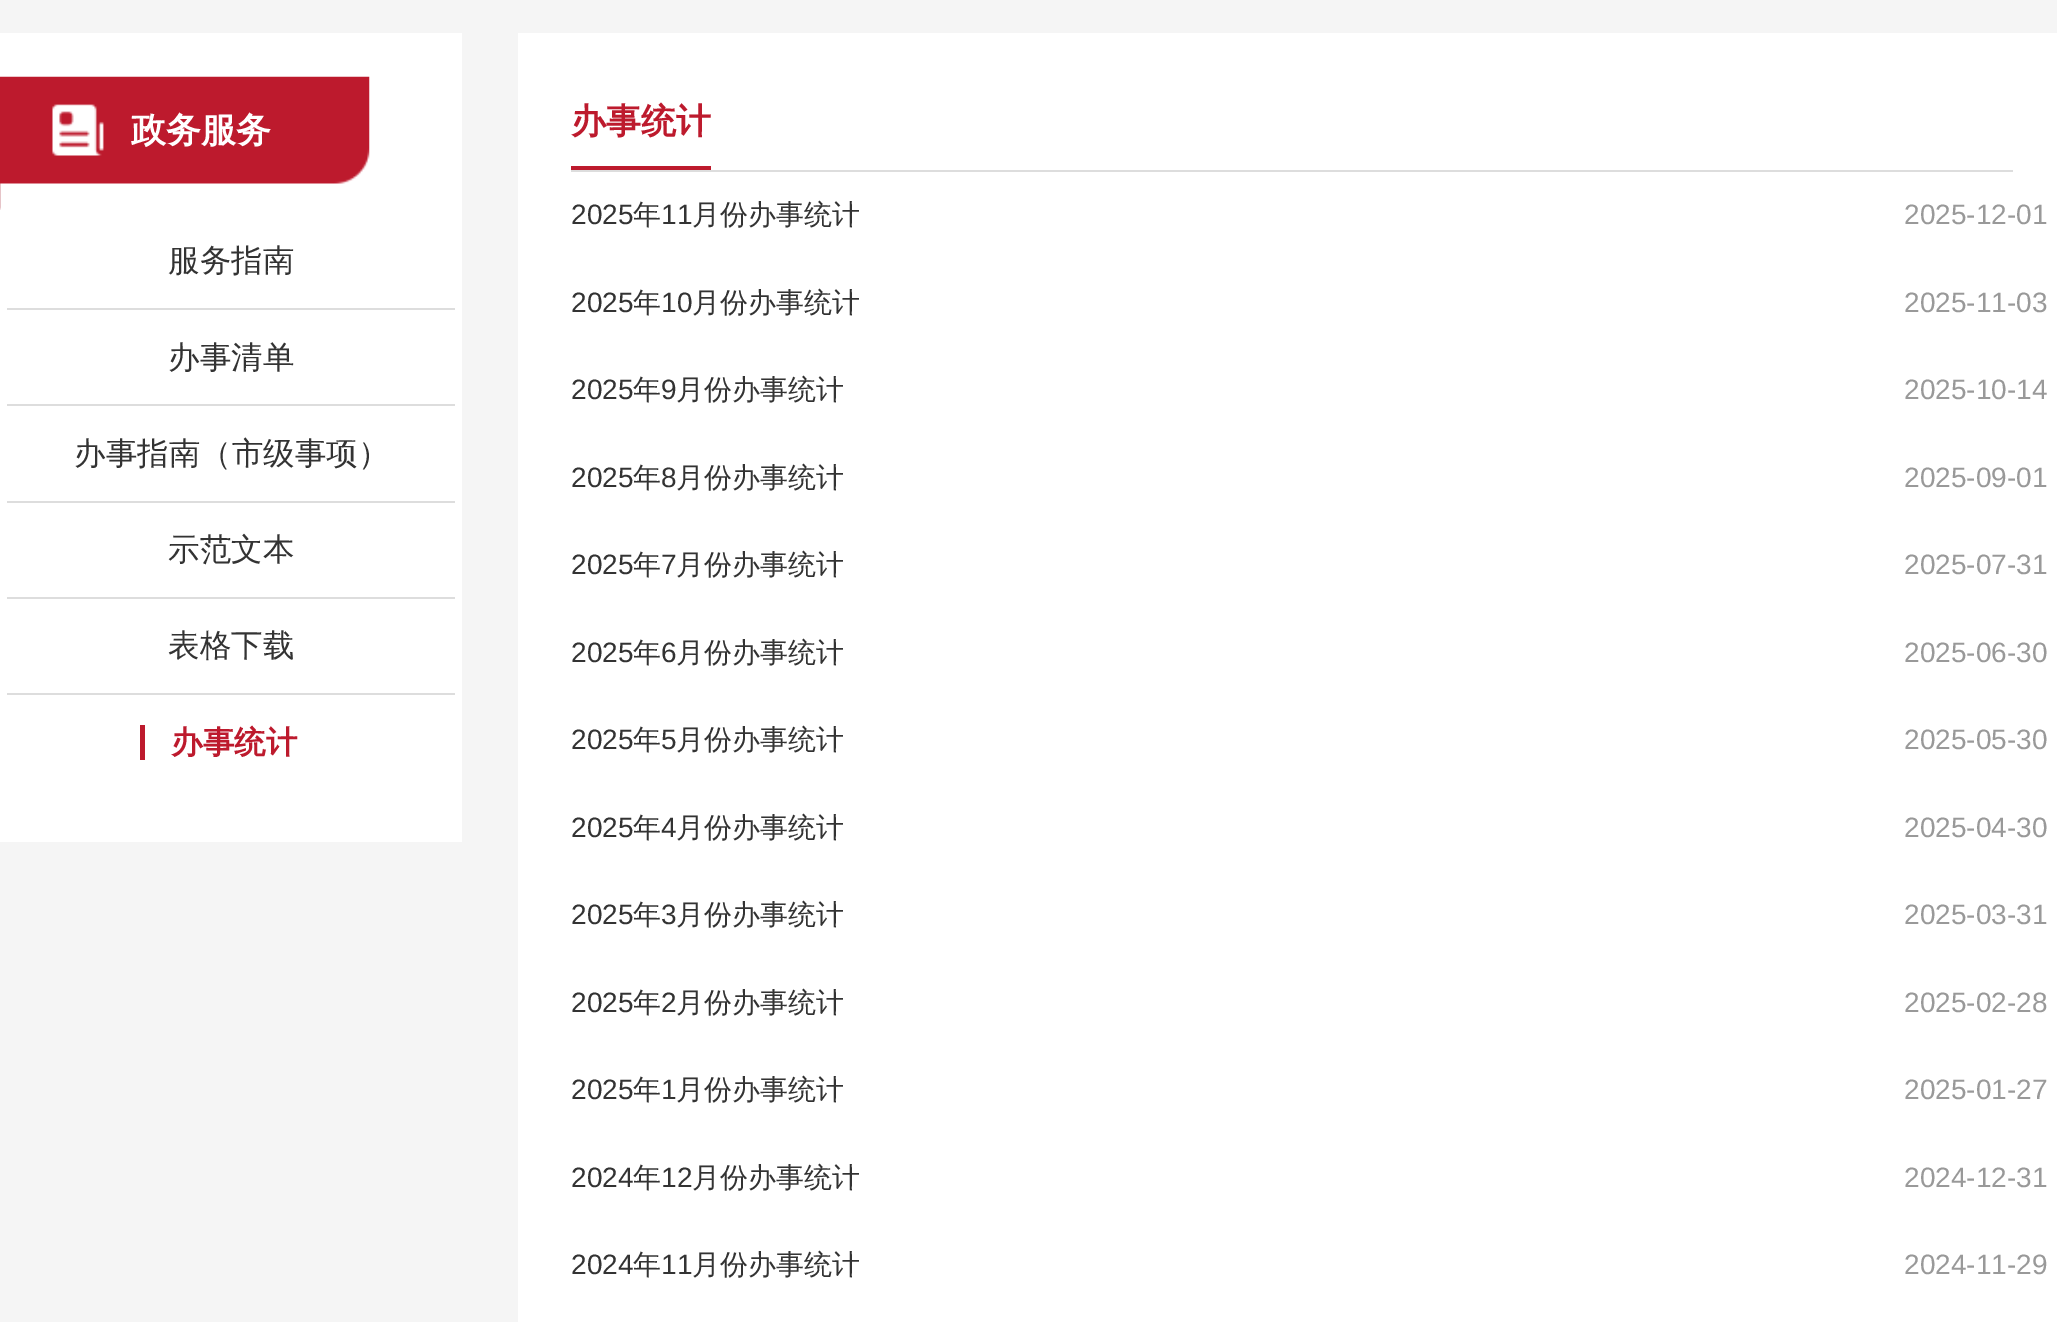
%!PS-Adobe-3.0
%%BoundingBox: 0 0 2057 1322
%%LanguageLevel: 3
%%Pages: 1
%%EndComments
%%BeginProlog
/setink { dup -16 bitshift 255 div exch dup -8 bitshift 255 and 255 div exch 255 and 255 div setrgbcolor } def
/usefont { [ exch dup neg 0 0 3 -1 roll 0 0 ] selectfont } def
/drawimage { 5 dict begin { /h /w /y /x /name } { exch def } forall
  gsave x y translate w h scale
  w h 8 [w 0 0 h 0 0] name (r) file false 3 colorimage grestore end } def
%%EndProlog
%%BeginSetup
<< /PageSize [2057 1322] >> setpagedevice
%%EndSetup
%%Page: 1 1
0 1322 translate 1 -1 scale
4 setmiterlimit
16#F5F5F5 setink
0 0 2057 1322 rectfill
16#FFFFFF setink
0 33 462 809 rectfill
(img1.raw) 0 76 370 134 drawimage
/WenQuanYiZenHei-Bold 35 usefont
131 142 moveto (政务服务) show
16#DDDDDD setink
7 308 448 2 rectfill
/WenQuanYiZenHei-Medium 31.5 usefont
16#333333 setink
168 271 moveto (服务指南) show
16#DDDDDD setink
7 404 448 2 rectfill
16#333333 setink
168 368 moveto (办事清单) show
16#DDDDDD setink
7 501 448 2 rectfill
16#333333 setink
74 464 moveto (办事指南（市级事项）) show
16#DDDDDD setink
7 597 448 2 rectfill
16#333333 setink
168 560 moveto (示范文本) show
16#DDDDDD setink
7 693 448 2 rectfill
16#333333 setink
168 656 moveto (表格下载) show
/WenQuanYiZenHei-Bold 31.5 usefont
16#BD1A2D setink
171 753 moveto (办事统计) show
[
    [140 725 5 35 16#BD1A2D]
    [518 33 1539 1289 16#FFFFFF]
    [571 170 1442 2 16#DDDDDD]
    [571 166 140 4 16#BD1A2D]
] { aload pop setink rectfill } forall
/WenQuanYiZenHei-Bold 35 usefont
571 133 moveto (办事统计) show
/LiberationSans-Regular 28 usefont
16#333333 setink
571 224 moveto (2025) show
/WenQuanYiZenHei-Medium 28 usefont
633 224 moveto (年) show
/LiberationSans-Regular 28 usefont
661 224 moveto (11) show
/WenQuanYiZenHei-Medium 28 usefont
692 224 moveto (月份办事统计) show
/LiberationSans-Regular 28 usefont
16#999999 setink
1904 224 moveto (2025-12-01) show
16#333333 setink
571 312 moveto (2025) show
/WenQuanYiZenHei-Medium 28 usefont
633 312 moveto (年) show
/LiberationSans-Regular 28 usefont
661 312 moveto (10) show
/WenQuanYiZenHei-Medium 28 usefont
692 312 moveto (月份办事统计) show
/LiberationSans-Regular 28 usefont
16#999999 setink
1904 312 moveto (2025-11-03) show
16#333333 setink
571 399 moveto (2025) show
/WenQuanYiZenHei-Medium 28 usefont
633 399 moveto (年) show
/LiberationSans-Regular 28 usefont
661 399 moveto (9) show
/WenQuanYiZenHei-Medium 28 usefont
676 399 moveto (月份办事统计) show
/LiberationSans-Regular 28 usefont
16#999999 setink
1904 399 moveto (2025-10-14) show
16#333333 setink
571 487 moveto (2025) show
/WenQuanYiZenHei-Medium 28 usefont
633 487 moveto (年) show
/LiberationSans-Regular 28 usefont
661 487 moveto (8) show
/WenQuanYiZenHei-Medium 28 usefont
676 487 moveto (月份办事统计) show
/LiberationSans-Regular 28 usefont
16#999999 setink
1904 487 moveto (2025-09-01) show
16#333333 setink
571 574 moveto (2025) show
/WenQuanYiZenHei-Medium 28 usefont
633 574 moveto (年) show
/LiberationSans-Regular 28 usefont
661 574 moveto (7) show
/WenQuanYiZenHei-Medium 28 usefont
676 574 moveto (月份办事统计) show
/LiberationSans-Regular 28 usefont
16#999999 setink
1904 574 moveto (2025-07-31) show
16#333333 setink
571 662 moveto (2025) show
/WenQuanYiZenHei-Medium 28 usefont
633 662 moveto (年) show
/LiberationSans-Regular 28 usefont
661 662 moveto (6) show
/WenQuanYiZenHei-Medium 28 usefont
676 662 moveto (月份办事统计) show
/LiberationSans-Regular 28 usefont
16#999999 setink
1904 662 moveto (2025-06-30) show
16#333333 setink
571 749 moveto (2025) show
/WenQuanYiZenHei-Medium 28 usefont
633 749 moveto (年) show
/LiberationSans-Regular 28 usefont
661 749 moveto (5) show
/WenQuanYiZenHei-Medium 28 usefont
676 749 moveto (月份办事统计) show
/LiberationSans-Regular 28 usefont
16#999999 setink
1904 749 moveto (2025-05-30) show
16#333333 setink
571 837 moveto (2025) show
/WenQuanYiZenHei-Medium 28 usefont
633 837 moveto (年) show
/LiberationSans-Regular 28 usefont
661 837 moveto (4) show
/WenQuanYiZenHei-Medium 28 usefont
676 837 moveto (月份办事统计) show
/LiberationSans-Regular 28 usefont
16#999999 setink
1904 837 moveto (2025-04-30) show
16#333333 setink
571 924 moveto (2025) show
/WenQuanYiZenHei-Medium 28 usefont
633 924 moveto (年) show
/LiberationSans-Regular 28 usefont
661 924 moveto (3) show
/WenQuanYiZenHei-Medium 28 usefont
676 924 moveto (月份办事统计) show
/LiberationSans-Regular 28 usefont
16#999999 setink
1904 924 moveto (2025-03-31) show
16#333333 setink
571 1012 moveto (2025) show
/WenQuanYiZenHei-Medium 28 usefont
633 1012 moveto (年) show
/LiberationSans-Regular 28 usefont
661 1012 moveto (2) show
/WenQuanYiZenHei-Medium 28 usefont
676 1012 moveto (月份办事统计) show
/LiberationSans-Regular 28 usefont
16#999999 setink
1904 1012 moveto (2025-02-28) show
16#333333 setink
571 1099 moveto (2025) show
/WenQuanYiZenHei-Medium 28 usefont
633 1099 moveto (年) show
/LiberationSans-Regular 28 usefont
661 1099 moveto (1) show
/WenQuanYiZenHei-Medium 28 usefont
676 1099 moveto (月份办事统计) show
/LiberationSans-Regular 28 usefont
16#999999 setink
1904 1099 moveto (2025-01-27) show
16#333333 setink
571 1187 moveto (2024) show
/WenQuanYiZenHei-Medium 28 usefont
633 1187 moveto (年) show
/LiberationSans-Regular 28 usefont
661 1187 moveto (12) show
/WenQuanYiZenHei-Medium 28 usefont
692 1187 moveto (月份办事统计) show
/LiberationSans-Regular 28 usefont
16#999999 setink
1904 1187 moveto (2024-12-31) show
16#333333 setink
571 1274 moveto (2024) show
/WenQuanYiZenHei-Medium 28 usefont
633 1274 moveto (年) show
/LiberationSans-Regular 28 usefont
661 1274 moveto (11) show
/WenQuanYiZenHei-Medium 28 usefont
692 1274 moveto (月份办事统计) show
/LiberationSans-Regular 28 usefont
16#999999 setink
1904 1274 moveto (2024-11-29) show
showpage
%%EOF
